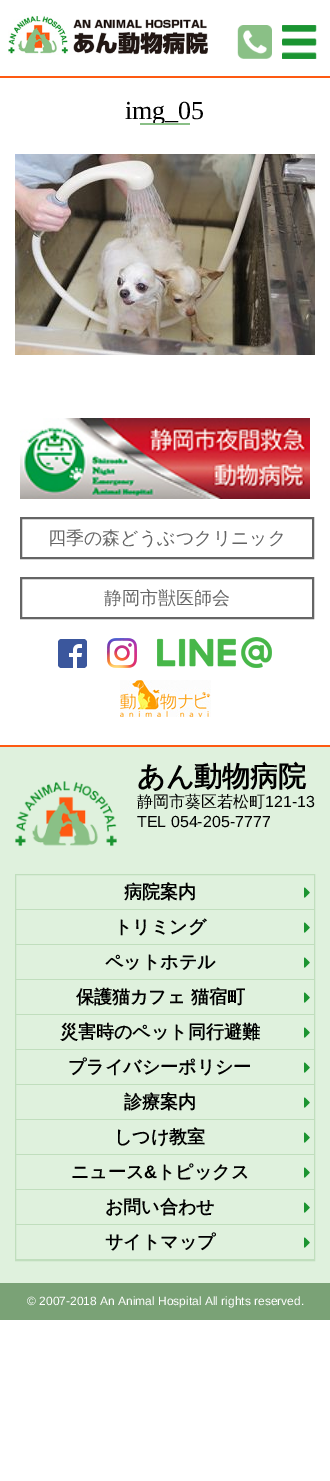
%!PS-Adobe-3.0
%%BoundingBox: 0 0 330 1481
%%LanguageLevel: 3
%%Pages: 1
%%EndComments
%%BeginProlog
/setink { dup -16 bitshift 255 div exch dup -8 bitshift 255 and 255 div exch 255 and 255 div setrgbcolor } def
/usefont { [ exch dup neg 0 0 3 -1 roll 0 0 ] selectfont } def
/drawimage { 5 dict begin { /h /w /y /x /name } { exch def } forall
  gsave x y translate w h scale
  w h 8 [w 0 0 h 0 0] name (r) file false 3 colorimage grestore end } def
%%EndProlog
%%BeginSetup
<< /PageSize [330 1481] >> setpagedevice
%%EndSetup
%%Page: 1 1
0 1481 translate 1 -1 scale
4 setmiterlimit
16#FFFFFF setink
0 0 330 1481 rectfill
16#FE5A12 setink
0 76 330 2 rectfill
(img1.raw) 8 15 200 40 drawimage
(img2.raw) 237 25 35 34 drawimage
(img3.raw) 282 25 35 34 drawimage
/LiberationSerif-Regular 26 usefont
16#000000 setink
125 119 moveto (img_05) show
16#8ABF87 setink
140 123 50 2 rectfill
(img4.raw) 15 154 300 201 drawimage
(img5.raw) 20 418 290 81 drawimage
16#656565 setink
2 setlinewidth
21 518 292 40 rectstroke
/WenQuanYiZenHei-Medium 18 usefont
48 544 moveto (四季の森どうぶつクリニック) show
21 578 292 40 rectstroke
104 604 moveto (静岡市獣医師会) show
(img6.raw) 58 639 29 29 drawimage
(img7.raw) 107 638 30 30 drawimage
(img8.raw) 157 637 115 31 drawimage
(img9.raw) 120 680 91 37 drawimage
16#DFF1DD setink
0 747 330 536 rectfill
16#FE5A12 setink
0 745 330 2 rectfill
(img10.raw) 15 781 102 66 drawimage
/WenQuanYiZenHei-Bold 28 usefont
16#000000 setink
137 786 moveto (あん動物病院) show
/WenQuanYiZenHei-Medium 16 usefont
137 807 moveto (静岡市葵区若松町) show
/LiberationSans-Regular 16 usefont
265 807 moveto (121-13) show
137 827 moveto (TEL 054-205-7777) show
16#C0DEBD setink
1 setlinewidth
15.5 874.5 299 386 rectstroke
16 909 298 1 rectfill
/WenQuanYiZenHei-Bold 18 usefont
16#000000 setink
124 898 moveto (病院案内) show
(img11.raw) 304 887 6 11 drawimage
16#C0DEBD setink
16 944 298 1 rectfill
16#000000 setink
114 933 moveto (トリミング) show
(img11.raw) 304 922 6 11 drawimage
16#C0DEBD setink
16 979 298 1 rectfill
16#000000 setink
105 968 moveto (ペットホテル) show
(img11.raw) 304 957 6 11 drawimage
16#C0DEBD setink
16 1014 298 1 rectfill
16#000000 setink
76 1003 moveto (保護猫カフェ 猫宿町) show
(img11.raw) 304 992 6 11 drawimage
16#C0DEBD setink
16 1049 298 1 rectfill
16#000000 setink
60 1038 moveto (災害時のペット同行避難) show
(img11.raw) 304 1027 6 11 drawimage
16#C0DEBD setink
16 1084 298 1 rectfill
16#000000 setink
68 1073 moveto (プライバシーポリシー) show
(img11.raw) 304 1062 6 11 drawimage
16#C0DEBD setink
16 1119 298 1 rectfill
16#000000 setink
124 1108 moveto (診療案内) show
(img11.raw) 304 1097 6 11 drawimage
16#C0DEBD setink
16 1154 298 1 rectfill
16#000000 setink
114 1143 moveto (しつけ教室) show
(img11.raw) 304 1132 6 11 drawimage
16#C0DEBD setink
16 1189 298 1 rectfill
16#000000 setink
71 1178 moveto (ニュース) show
/LiberationSans-Bold 18 usefont
144 1178 moveto (&) show
/WenQuanYiZenHei-Bold 18 usefont
157 1178 moveto (トピックス) show
(img11.raw) 304 1167 6 11 drawimage
16#C0DEBD setink
16 1224 298 1 rectfill
16#000000 setink
105 1213 moveto (お問い合わせ) show
(img11.raw) 304 1202 6 11 drawimage
16#C0DEBD setink
16 1259 298 1 rectfill
16#000000 setink
105 1248 moveto (サイトマップ) show
(img11.raw) 304 1237 6 11 drawimage
16#7AA276 setink
0 1283 330 37 rectfill
/LiberationSans-Regular 12 usefont
16#FFFFFF setink
27 1305 moveto (© 2007-2018 An Animal Hospital All rights reserved.) show
showpage
%%EOF
